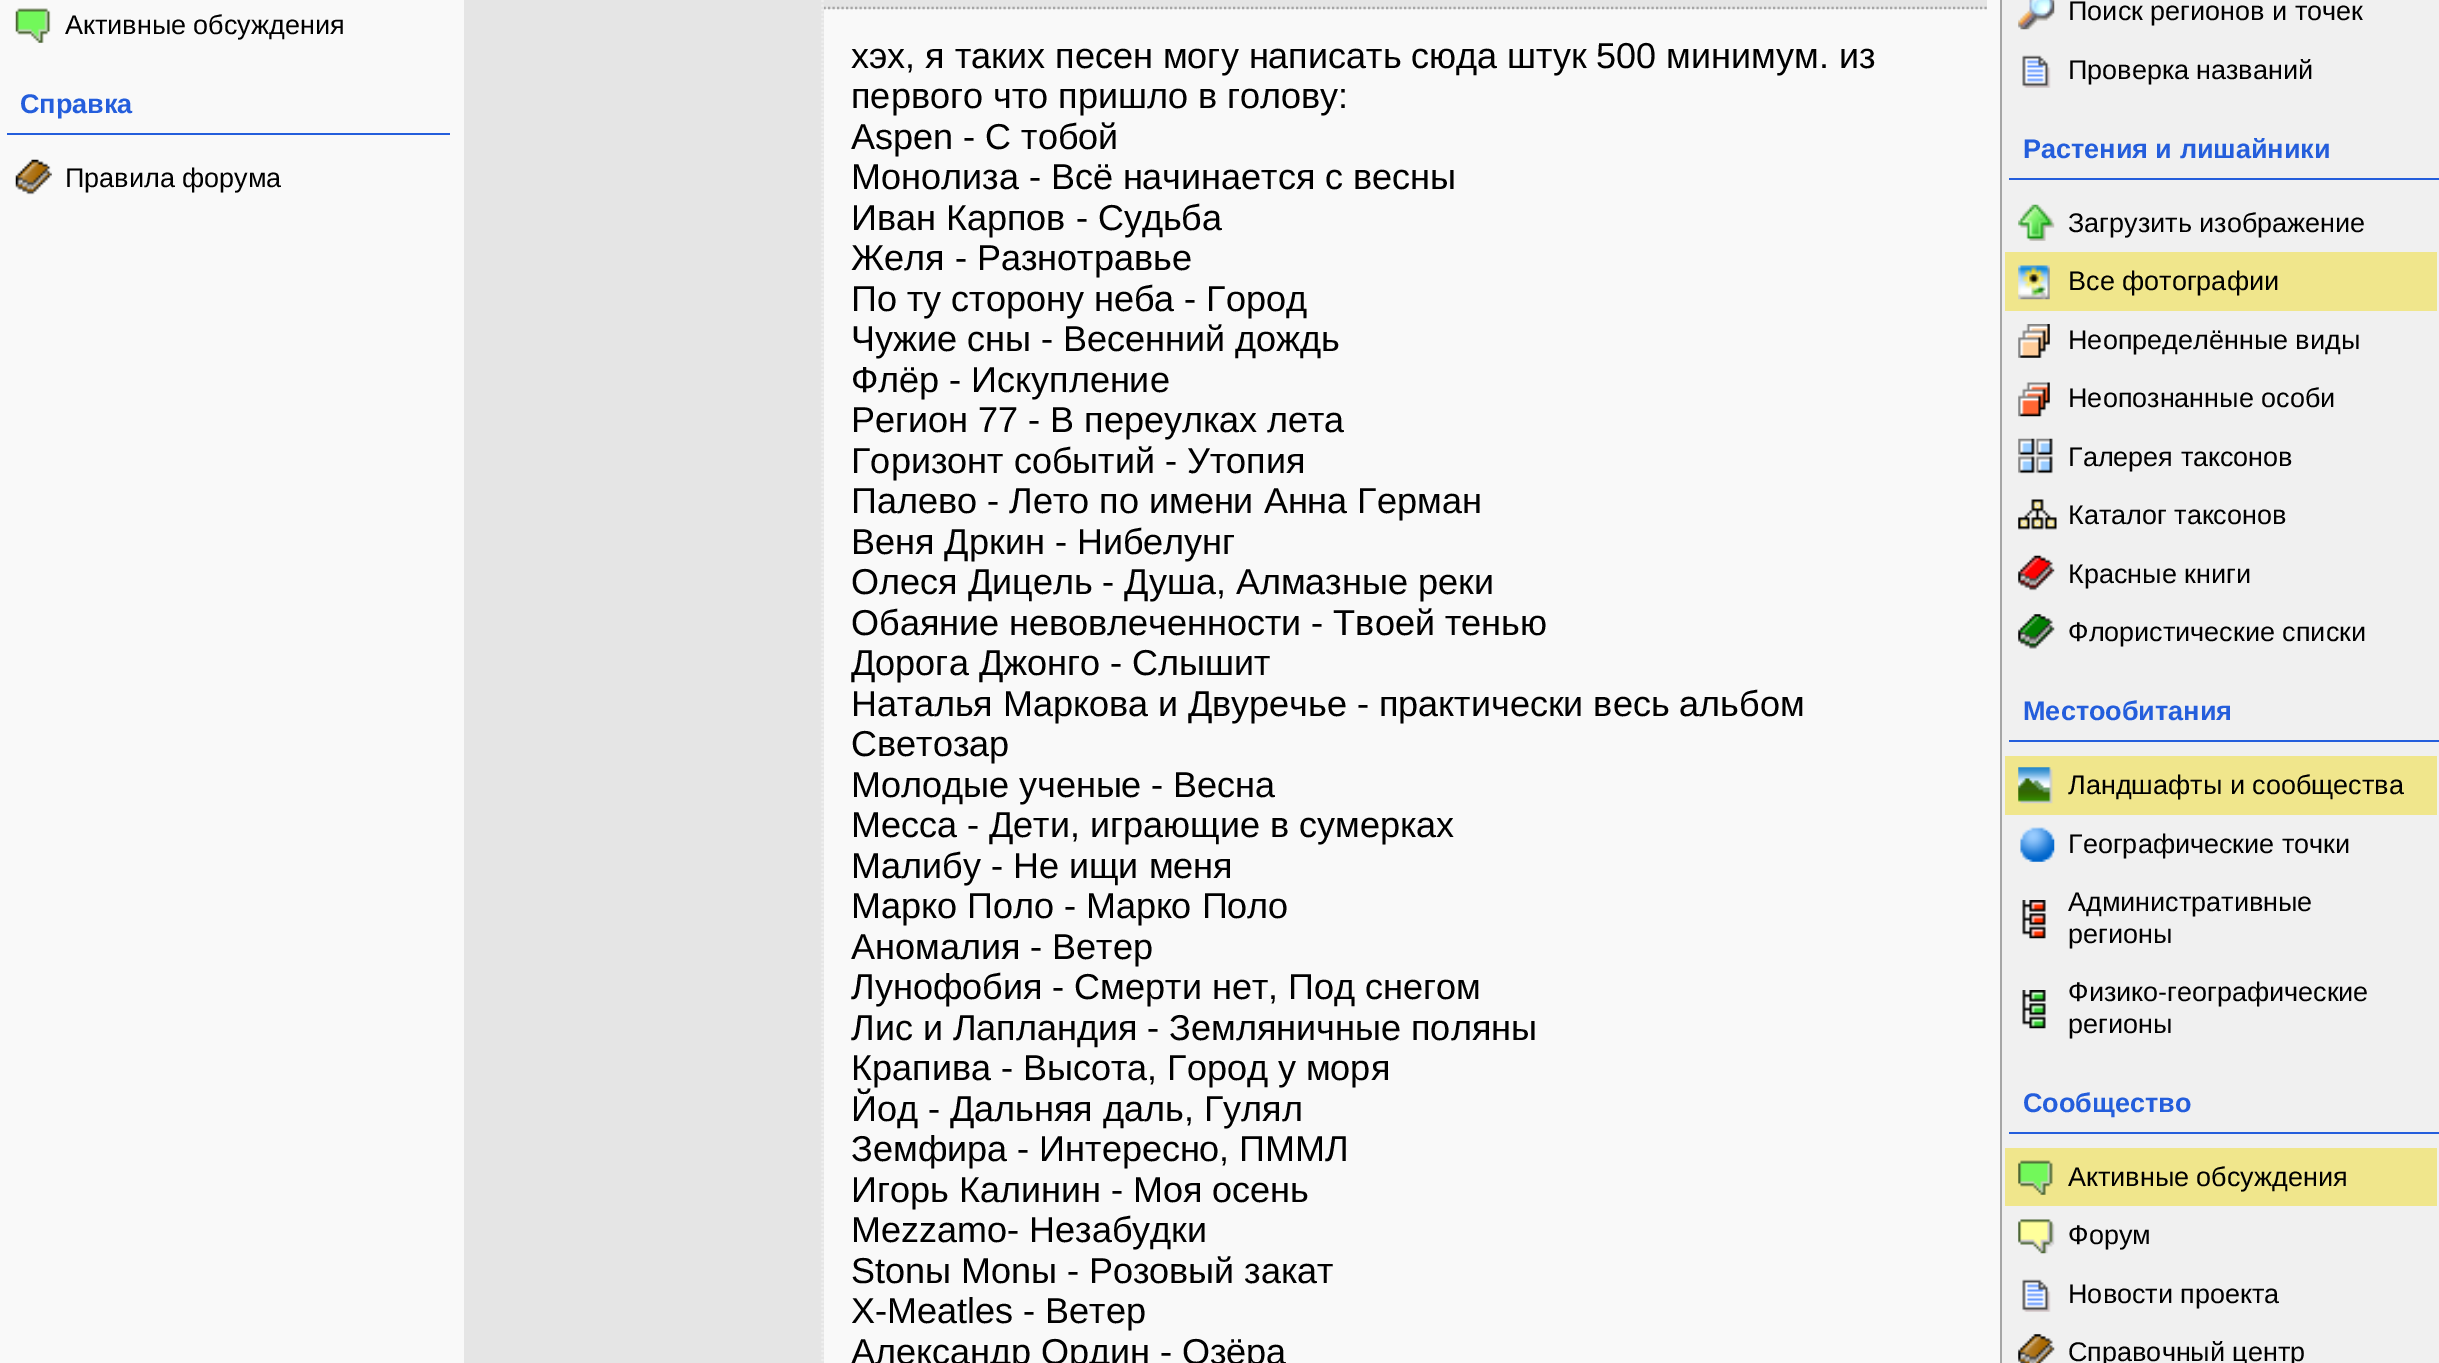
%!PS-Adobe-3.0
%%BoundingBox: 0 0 2439 1363
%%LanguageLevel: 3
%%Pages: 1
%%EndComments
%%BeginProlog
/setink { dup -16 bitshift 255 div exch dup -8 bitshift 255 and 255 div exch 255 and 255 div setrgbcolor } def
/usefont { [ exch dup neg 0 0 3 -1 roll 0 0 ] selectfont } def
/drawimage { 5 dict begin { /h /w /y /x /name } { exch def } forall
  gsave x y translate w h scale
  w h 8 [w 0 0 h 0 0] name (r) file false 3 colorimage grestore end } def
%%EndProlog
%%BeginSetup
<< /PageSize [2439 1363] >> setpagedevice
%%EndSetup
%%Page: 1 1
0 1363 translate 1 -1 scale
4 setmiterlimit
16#F9F9F9 setink
0 0 2439 1363 rectfill
(img1.raw) 15 8 36 35 drawimage
/LiberationSans-Regular 27 usefont
16#000000 setink
65 34 moveto (Активные обсуждения) show
16#245EDC setink
7 133 443 2 rectfill
/LiberationSans-Bold 27 usefont
20 113 moveto (Справка) show
(img2.raw) 15 159 37 36 drawimage
/LiberationSans-Regular 27 usefont
16#000000 setink
65 187 moveto (Правила форума) show
16#E5E5E5 setink
824 0 1163 9 rectfill
16#A6A6A6 setink
2.2 setlinewidth
[2.25 2.25] 0 setdash
823.5 8 moveto 1987 8 lineto stroke
16#E5E5E5 setink
464 0 360 1363 rectfill
16#EFEFEF setink
822.5 -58.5 moveto 822.5 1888 lineto stroke
/LiberationSans-Regular 36 usefont
16#000000 setink
[
    [(хэх, я таких песен могу написать сюда штук 500 минимум. из) 851 68]
    [(первого что пришло в голову:) 851 108]
    [(Aspen - С тобой) 851 149]
    [(Монолиза - Всё начинается с весны) 851 189]
    [(Иван Карпов - Судьба) 851 230]
    [(Желя - Разнотравье) 851 270]
    [(По ту сторону неба - Город) 851 311]
    [(Чужие сны - Весенний дождь) 851 351]
    [(Флёр - Искупление) 851 392]
    [(Регион 77 - В переулках лета) 851 432]
    [(Горизонт событий - Утопия) 851 473]
    [(Палево - Лето по имени Анна Герман) 851 513]
    [(Веня Дркин - Нибелунг) 851 554]
    [(Олеся Дицель - Душа, Алмазные реки) 851 594]
    [(Обаяние невовлеченности - Твоей тенью) 851 635]
    [(Дорога Джонго - Слышит) 851 675]
    [(Наталья Маркова и Двуречье - практически весь альбом) 851 716]
    [(Светозар) 851 756]
    [(Молодые ученые - Весна) 851 797]
    [(Месса - Дети, играющие в сумерках) 851 837]
    [(Малибу - Не ищи меня) 851 878]
    [(Марко Поло - Марко Поло) 851 918]
    [(Аномалия - Ветер) 851 959]
    [(Лунофобия - Смерти нет, Под снегом) 851 999]
    [(Лис и Лапландия - Земляничные поляны) 851 1040]
    [(Крапива - Высота, Город у моря) 851 1080]
    [(Йод - Дальняя даль, Гулял) 851 1121]
    [(Земфира - Интересно, ПММЛ) 851 1161]
    [(Игорь Калинин - Моя осень) 851 1202]
    [(Mezzamo- Незабудки) 851 1242]
    [(Stonы Monы - Розовый закат) 851 1283]
    [(X-Meatles - Ветер) 851 1323]
    [(Александр Ордин - Озёра) 851 1364]
] { aload pop moveto show } forall
16#F0F0F0 setink
2002 0 437 1363 rectfill
16#A6A6A6 setink
2000 0 2 1363 rectfill
(img3.raw) 2018 0 37 30 drawimage
/LiberationSans-Regular 27 usefont
16#000000 setink
2068 20 moveto (Поиск регионов и точек) show
(img4.raw) 2022 55 29 33 drawimage
2068 79 moveto (Проверка названий) show
16#245EDC setink
2009 178 430 2 rectfill
/LiberationSans-Bold 27 usefont
2023 158 moveto (Растения и лишайники) show
(img5.raw) 2018 204 37 37 drawimage
/LiberationSans-Regular 27 usefont
16#000000 setink
2068 232 moveto (Загрузить изображение) show
16#F0E68C setink
2005 252 432 59 rectfill
(img6.raw) 2018 265 32 35 drawimage
16#000000 setink
2068 290 moveto (Все фотографии) show
(img7.raw) 2018 324 32 34 drawimage
2068 349 moveto (Неопределённые виды) show
(img8.raw) 2018 382 32 35 drawimage
2068 407 moveto (Неопознанные особи) show
(img9.raw) 2018 438 35 36 drawimage
2068 466 moveto (Галерея таксонов) show
(img10.raw) 2018 499 39 31 drawimage
2068 524 moveto (Каталог таксонов) show
(img11.raw) 2018 555 37 36 drawimage
2068 583 moveto (Красные книги) show
(img12.raw) 2018 614 37 35 drawimage
2068 641 moveto (Флористические списки) show
16#245EDC setink
2009 740 430 2 rectfill
/LiberationSans-Bold 27 usefont
2023 720 moveto (Местообитания) show
16#F0E68C setink
2005 756 432 59 rectfill
(img13.raw) 2018 767 35 37 drawimage
/LiberationSans-Regular 27 usefont
16#000000 setink
2068 794 moveto (Ландшафты и сообщества) show
(img14.raw) 2020 827 35 35 drawimage
2068 853 moveto (Географические точки) show
(img15.raw) 2022 900 24 39 drawimage
2068 911 moveto (Административные) show
2068 943 moveto (регионы) show
(img16.raw) 2022 990 24 39 drawimage
2068 1001 moveto (Физико-географические) show
2068 1033 moveto (регионы) show
16#245EDC setink
2009 1132 430 2 rectfill
/LiberationSans-Bold 27 usefont
2023 1112 moveto (Сообщество) show
16#F0E68C setink
2005 1148 432 58 rectfill
(img17.raw) 2018 1160 35 35 drawimage
/LiberationSans-Regular 27 usefont
16#000000 setink
2068 1186 moveto (Активные обсуждения) show
(img18.raw) 2018 1219 37 35 drawimage
2068 1244 moveto (Форум) show
(img19.raw) 2022 1279 29 33 drawimage
2068 1303 moveto (Новости проекта) show
(img20.raw) 2018 1334 37 29 drawimage
2068 1361 moveto (Справочный центр) show
showpage
%%EOF
